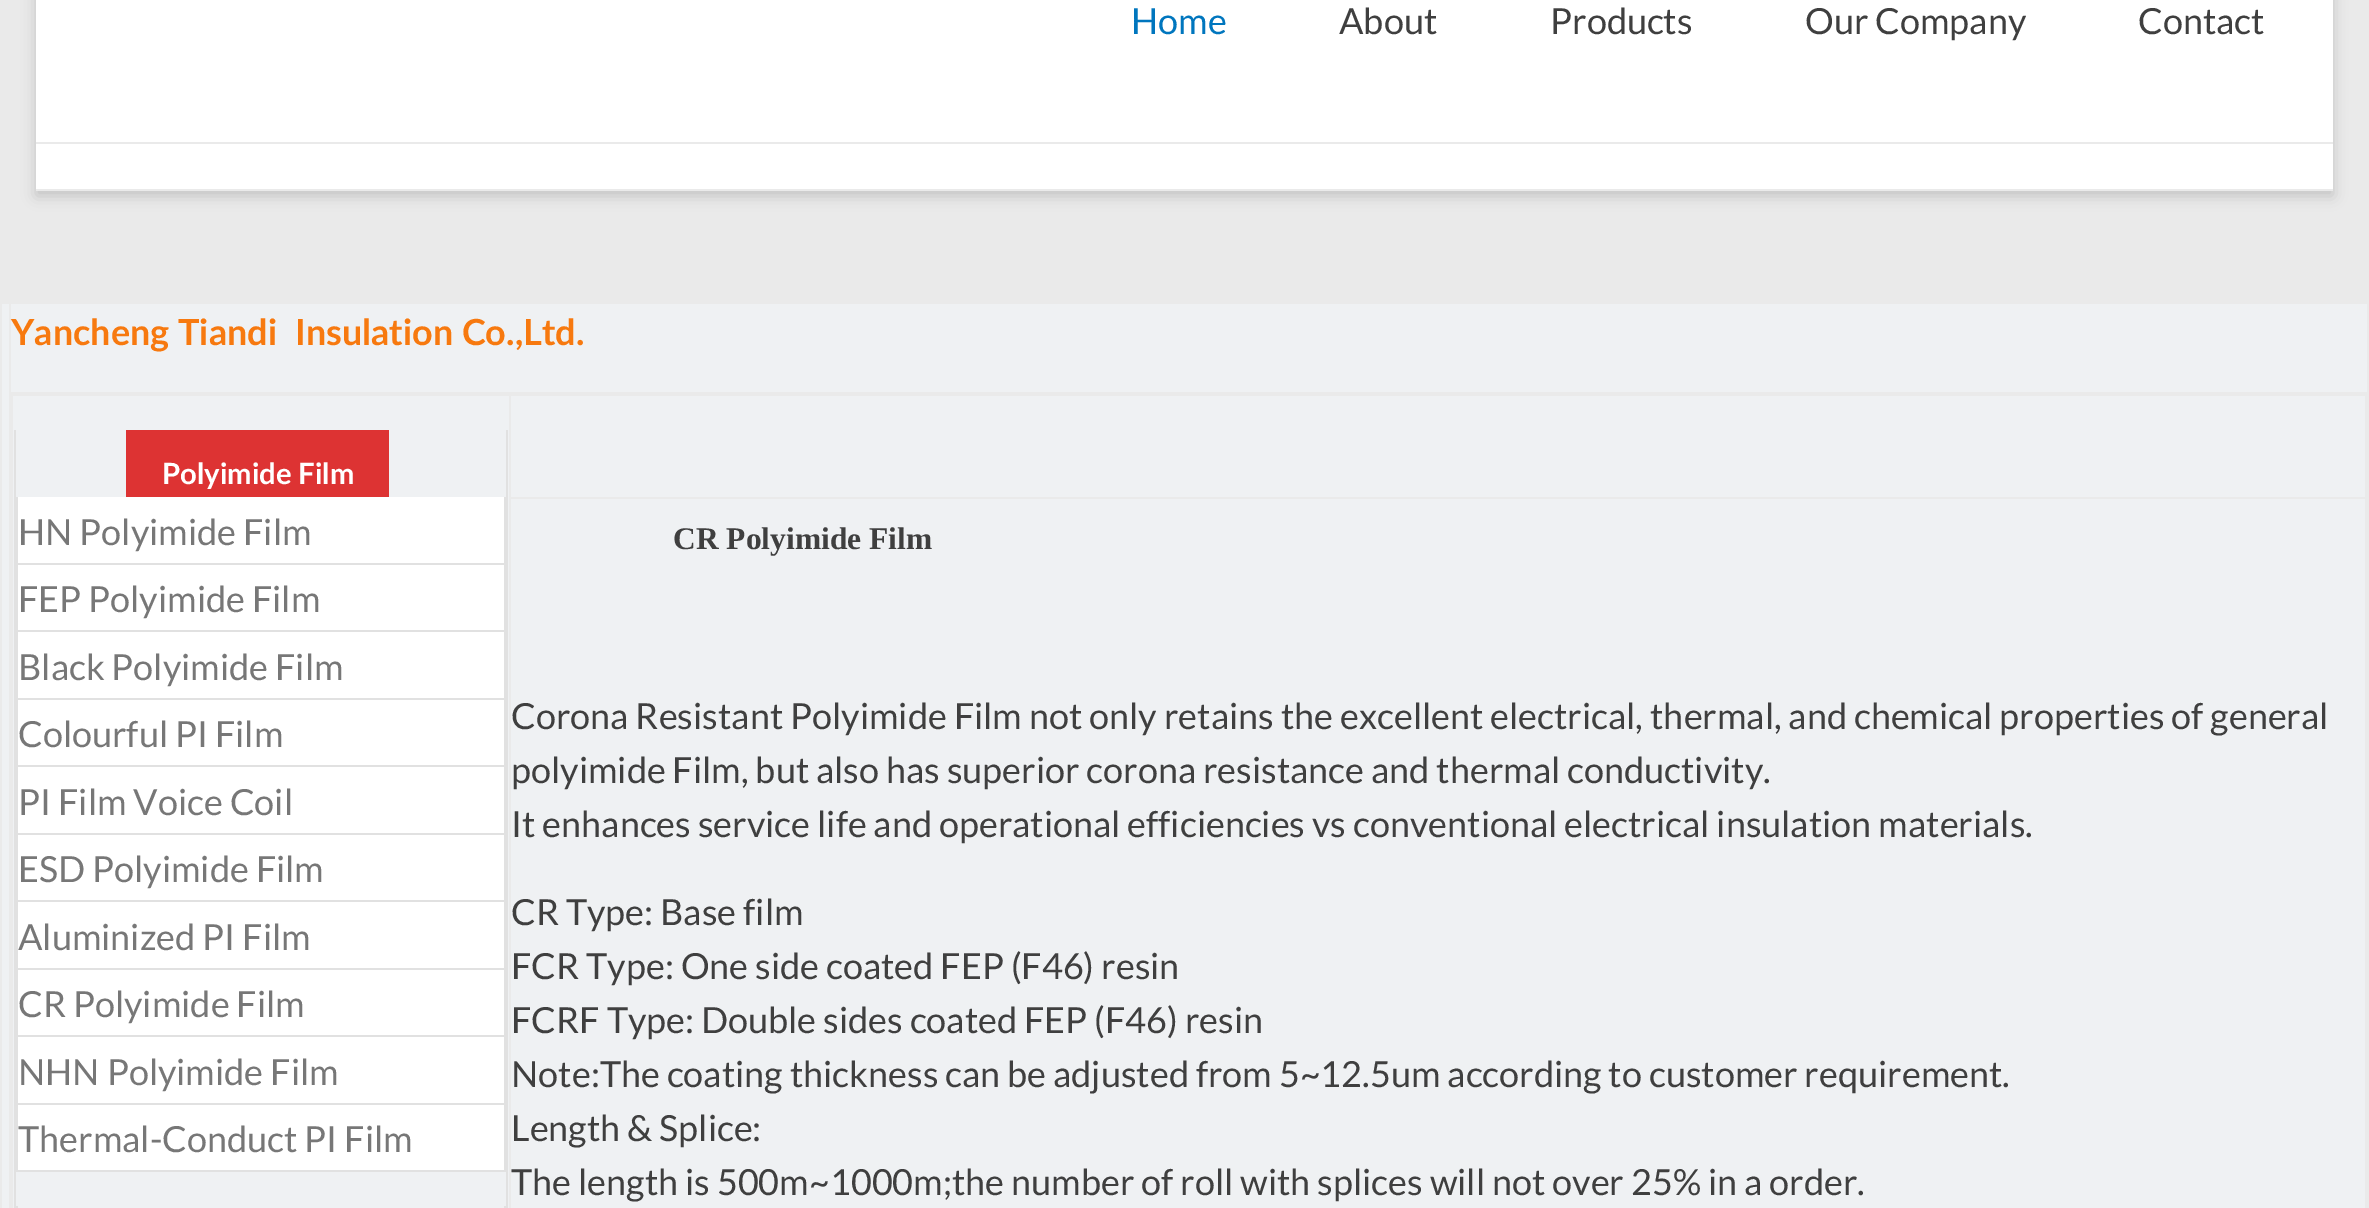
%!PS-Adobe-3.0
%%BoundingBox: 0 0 2369 1208
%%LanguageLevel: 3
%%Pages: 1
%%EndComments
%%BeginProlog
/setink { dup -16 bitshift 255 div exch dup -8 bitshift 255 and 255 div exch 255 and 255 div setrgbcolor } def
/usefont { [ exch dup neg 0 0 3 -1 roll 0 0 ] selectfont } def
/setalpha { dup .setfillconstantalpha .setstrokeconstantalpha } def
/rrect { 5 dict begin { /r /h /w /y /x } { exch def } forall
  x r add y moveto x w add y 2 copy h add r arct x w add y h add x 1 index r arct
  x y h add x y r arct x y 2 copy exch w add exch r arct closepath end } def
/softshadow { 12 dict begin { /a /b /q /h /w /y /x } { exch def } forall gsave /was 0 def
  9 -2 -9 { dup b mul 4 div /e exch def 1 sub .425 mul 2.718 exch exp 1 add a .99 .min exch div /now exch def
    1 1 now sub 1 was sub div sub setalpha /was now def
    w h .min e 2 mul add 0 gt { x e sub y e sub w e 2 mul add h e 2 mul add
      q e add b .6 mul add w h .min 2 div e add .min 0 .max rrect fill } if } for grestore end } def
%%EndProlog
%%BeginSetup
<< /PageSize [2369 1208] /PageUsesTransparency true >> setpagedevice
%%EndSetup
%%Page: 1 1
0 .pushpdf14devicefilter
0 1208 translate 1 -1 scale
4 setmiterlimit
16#EAEAEA setink
0 0 2369 1208 rectfill
16#646464 setink
36 -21 2297 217 0 7 0.3 softshadow
16#FFFFFF setink
36 0 2297 189 rectfill
16#EAEAEA setink
36 142 2297 2 rectfill
/Lato-Regular 36 usefont
16#0076BE setink
1131 34 moveto (Home) show
16#3F3F3F setink
[
    [(About) 1339 34]
    [(Products) 1550 34]
    [(Our Company) 1805 34]
    [(Contact) 2138 34]
] { aload pop moveto show } forall
[
    [36 189 2297 2 16#EAEAEA]
    [2 304 7 904 16#EFF1F3]
    [11 304 2356 88 16#EFF1F3]
] { aload pop setink rectfill } forall
/Lato-Bold 36 usefont
16#F7790F setink
11 345 moveto (Yancheng Tiandi) show
295 345 moveto (Insulation Co.,Ltd.) show
[
    [13 396 2352 812 16#EFF1F3]
    [506 430 2 778 16#E1E1E1]
    [14 430 2 778 16#E1E1E1]
    [126 430 263 67 16#DD3333]
] { aload pop setink rectfill } forall
/Lato-Bold 29.25 usefont
16#FFFFFF setink
162 484 moveto (Polyimide Film) show
[
    [504 497 2 675 16#E1E1E1]
    [16 497 2 675 16#E1E1E1]
    [18 497 486 66 16#FFFFFF]
    [18 563 486 2 16#E1E1E1]
] { aload pop setink rectfill } forall
/Lato-Regular 36 usefont
16#777777 setink
18 545 moveto (HN Polyimide Film) show
16#FFFFFF setink
18 565 486 65 rectfill
16#E1E1E1 setink
18 630 486 2 rectfill
16#777777 setink
18 612 moveto (FEP Polyimide Film) show
16#FFFFFF setink
18 632 486 66 rectfill
16#E1E1E1 setink
18 698 486 2 rectfill
16#777777 setink
18 680 moveto (Black Polyimide Film) show
16#FFFFFF setink
18 700 486 65 rectfill
16#E1E1E1 setink
18 765 486 2 rectfill
16#777777 setink
18 747 moveto (Colourful PI Film) show
16#FFFFFF setink
18 767 486 66 rectfill
16#E1E1E1 setink
18 833 486 2 rectfill
16#777777 setink
18 815 moveto (PI Film Voice Coil) show
16#FFFFFF setink
18 835 486 65 rectfill
16#E1E1E1 setink
18 900 486 2 rectfill
16#777777 setink
18 882 moveto (ESD Polyimide Film) show
16#FFFFFF setink
18 902 486 66 rectfill
16#E1E1E1 setink
18 968 486 2 rectfill
16#777777 setink
18 950 moveto (Aluminized PI Film) show
16#FFFFFF setink
18 970 486 65 rectfill
16#E1E1E1 setink
18 1035 486 2 rectfill
16#777777 setink
18 1017 moveto (CR Polyimide Film) show
16#FFFFFF setink
18 1037 486 66 rectfill
16#E1E1E1 setink
18 1103 486 2 rectfill
16#777777 setink
18 1085 moveto (NHN Polyimide Film) show
16#FFFFFF setink
18 1105 486 65 rectfill
16#E1E1E1 setink
18 1170 486 2 rectfill
16#777777 setink
18 1152 moveto (Thermal-Conduct PI Film) show
[
    [504 1206 2 2 16#E1E1E1]
    [16 1206 2 2 16#E1E1E1]
    [509 497 1858 2 16#EAEAEA]
    [509 394 2 814 16#EAEAEA]
] { aload pop setink rectfill } forall
/LiberationSerif-Bold 31.5 usefont
16#3F3F3F setink
673 549 moveto (CR Polyimide Film) show
/Lato-Regular 36 usefont
[
    [(Corona Resistant Polyimide Film not only retains the excellent electrical, thermal, and chemical properties of general) 511 729]
    [(polyimide Film, but also has superior corona resistance and thermal conductivity.) 511 783]
    [(It enhances service life and operational efficiencies vs conventional electrical insulation materials.) 511 837]
    [(CR Type: Base film) 511 925]
    [(FCR Type: One side coated FEP \(F46\) resin) 511 979]
    [(FCRF Type: Double sides coated FEP \(F46\) resin) 511 1033]
    [(Note:The coating thickness can be adjusted from 5~12.5um according to customer requirement.) 511 1087]
    [(Length & Splice:) 511 1141]
    [(The length is 500m~1000m;the number of roll with splices will not over 25% in a order.) 511 1195]
] { aload pop moveto show } forall
.poppdf14devicefilter showpage
%%EOF
